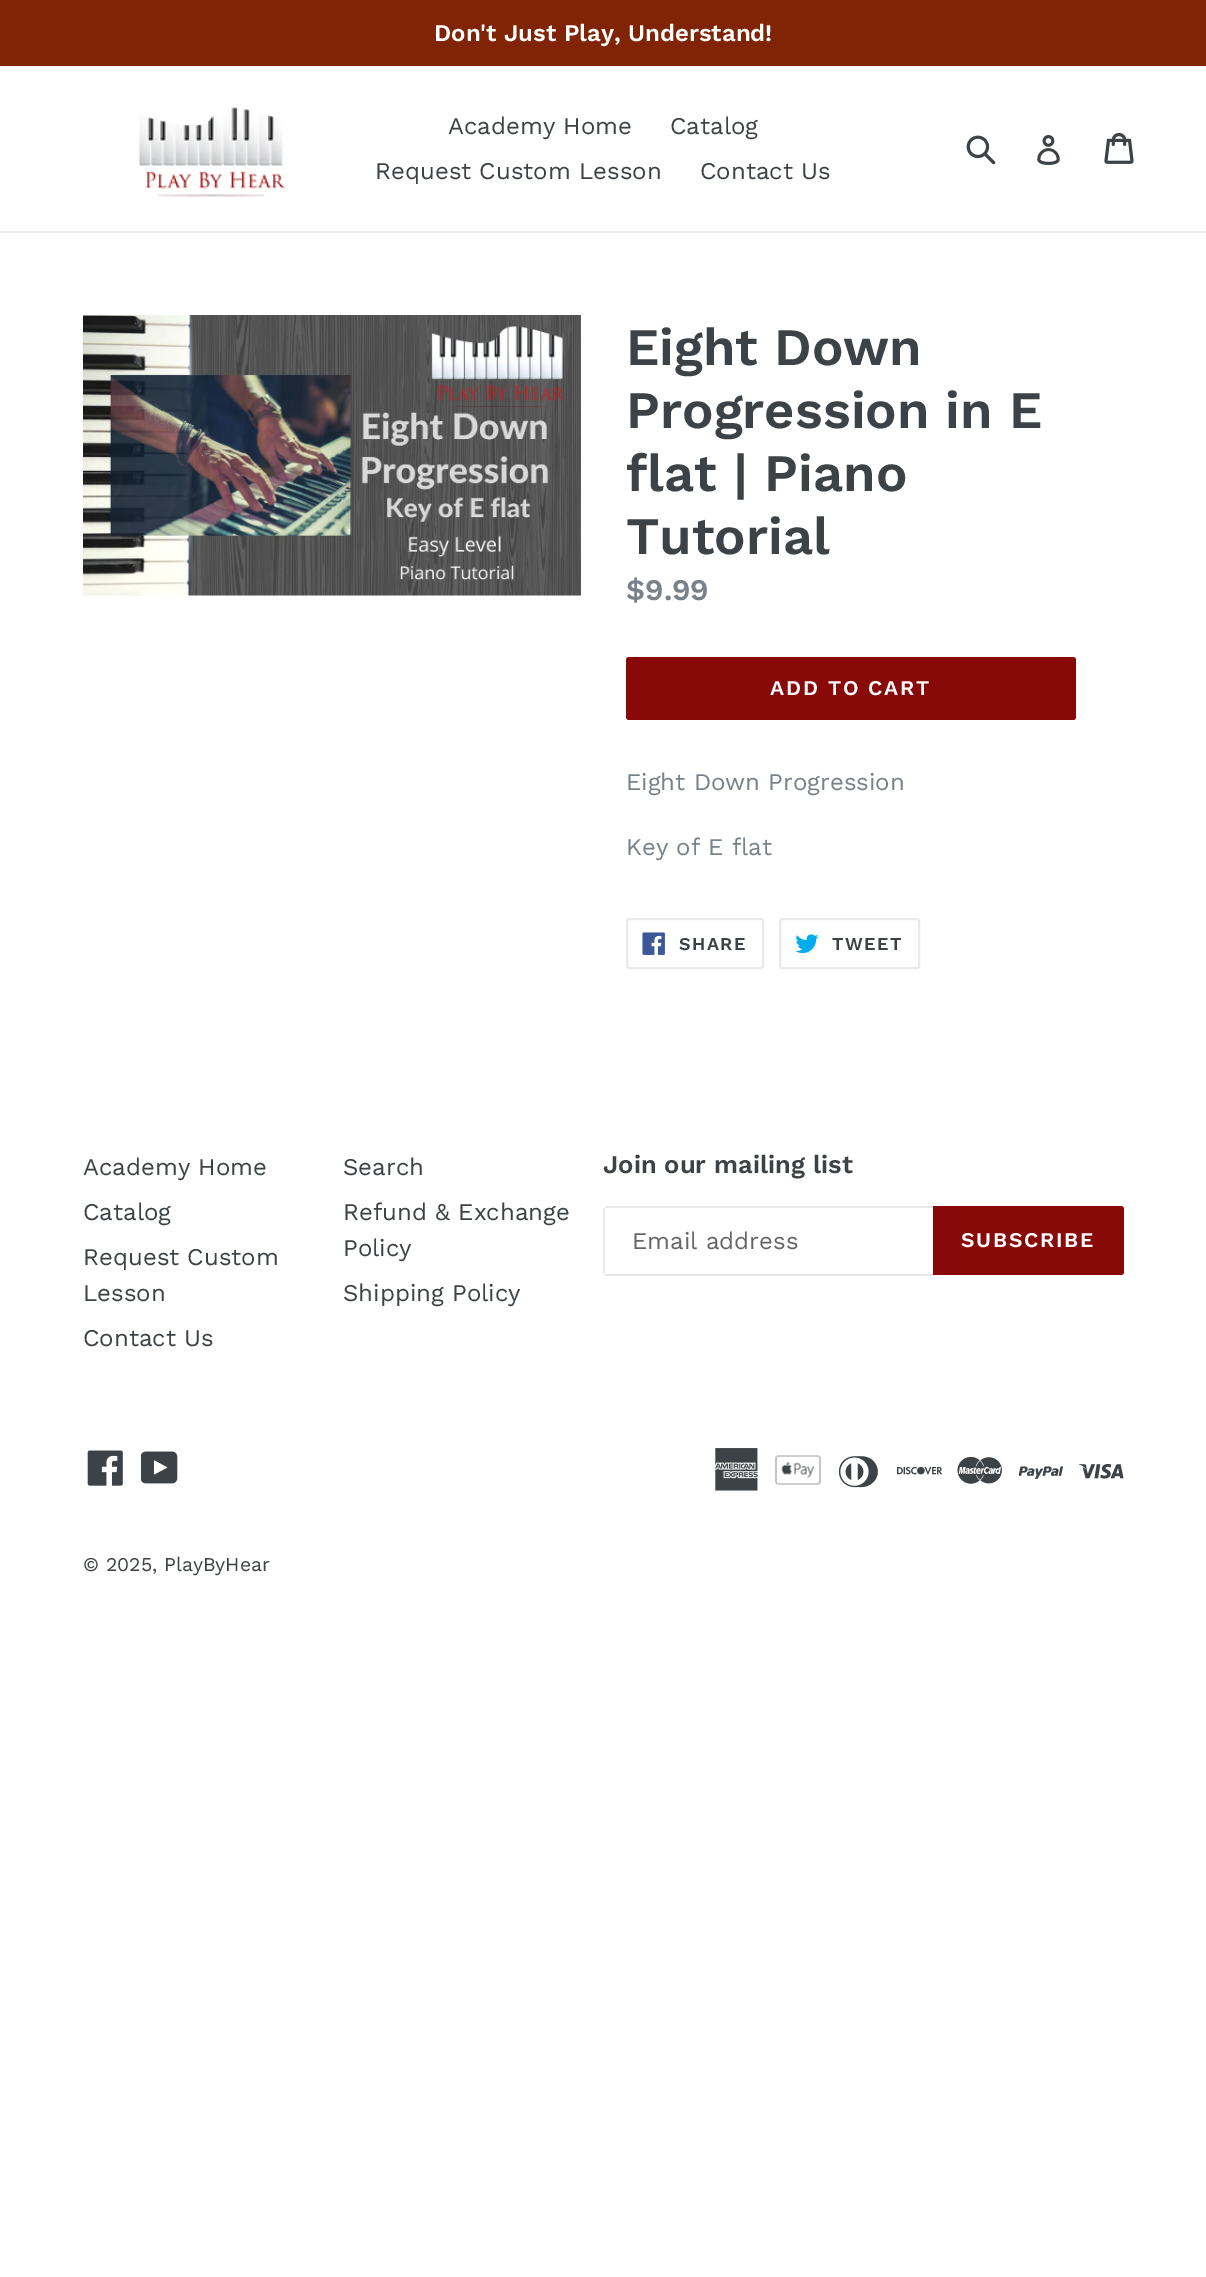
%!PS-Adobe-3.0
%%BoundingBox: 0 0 1206 2277
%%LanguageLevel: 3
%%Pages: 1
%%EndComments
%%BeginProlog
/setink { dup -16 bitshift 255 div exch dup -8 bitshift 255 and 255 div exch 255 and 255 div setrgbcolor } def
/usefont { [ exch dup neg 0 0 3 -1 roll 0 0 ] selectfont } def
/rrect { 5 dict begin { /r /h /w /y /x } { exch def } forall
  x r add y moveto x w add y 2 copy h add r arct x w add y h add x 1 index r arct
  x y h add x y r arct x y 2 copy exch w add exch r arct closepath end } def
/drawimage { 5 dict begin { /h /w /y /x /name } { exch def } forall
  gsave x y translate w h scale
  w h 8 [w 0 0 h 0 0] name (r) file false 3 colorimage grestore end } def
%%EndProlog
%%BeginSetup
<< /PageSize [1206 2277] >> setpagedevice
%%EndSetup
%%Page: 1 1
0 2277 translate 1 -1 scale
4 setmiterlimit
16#FFFFFF setink
0 0 1206 2277 rectfill
16#802405 setink
0 0 1206 66 rectfill
/WorkSans-SemiBold 24 usefont
16#FFFFFF setink
434 41 moveto (Don't Just Play, Understand!) show
16#E8E9EB setink
0 231 1206 2 rectfill
(img1.raw) 138 106 148 91 drawimage
/WorkSans-Regular 24 usefont
16#3D4246 setink
[
    [(Academy Home) 448 134]
    [(Catalog) 670 134]
    [(Request Custom Lesson) 375 179]
    [(Contact Us) 700 179]
] { aload pop moveto show } forall
(img2.raw) 966 135 30 30 drawimage
(img3.raw) 1037 135 23 30 drawimage
(img4.raw) 1104 132 30 32 drawimage
(img5.raw) 83 315 498 281 drawimage
/WorkSans-SemiBold 52.5 usefont
[
    [(Eight Down) 626 365]
    [(Progression in E) 626 428]
    [(flat | Piano) 626 491]
    [(Tutorial) 626 554]
] { aload pop moveto show } forall
/WorkSans-SemiBold 30 usefont
16#788188 setink
626 600 moveto ($9.99) show
16#890808 setink
626 657 450 63 3 rrect fill
/WorkSans-SemiBold 21 usefont
16#FFFFFF setink
770 695 moveto 1.75 0 (ADD TO CART) ashow
/WorkSans-Regular 24 usefont
16#788188 setink
626 790 moveto (Eight Down Progression) show
626 855 moveto (Key of E flat) show
16#E8E9EB setink
2 setlinewidth
627 919 136 49 2 rrect stroke
(img6.raw) 642 932 23 23 drawimage
/WorkSans-SemiBold 18 usefont
16#3D4246 setink
679 950 moveto 1.5 0 (SHARE) ashow
16#E8E9EB setink
780 919 139 49 2 rrect stroke
(img7.raw) 795 934 24 20 drawimage
16#3D4246 setink
832 950 moveto 1.5 0 (TWEET) ashow
/WorkSans-Regular 24 usefont
[
    [(Academy Home) 83 1175]
    [(Catalog) 83 1220]
    [(Request Custom) 83 1265]
    [(Lesson) 83 1301]
    [(Contact Us) 83 1346]
    [(Search) 343 1175]
    [(Refund & Exchange) 343 1220]
    [(Policy) 343 1256]
    [(Shipping Policy) 343 1301]
] { aload pop moveto show } forall
/WorkSans-SemiBold 25.5 usefont
603 1173 moveto (Join our mailing list) show
[
    [605 1206 328 2 16#E8E9EB]
    [605 1274 328 2 16#E8E9EB]
    [603 1208 2 66 16#E8E9EB]
] { aload pop setink rectfill } forall
/WorkSans-Regular 24 usefont
16#666666 setink
632 1249 moveto (Email address) show
16#890808 setink
933 1206 moveto 1121 1206 lineto 1122.5 1206 1124 1207.5 1124 1209 curveto 1124 1272 lineto 1124 1273.5 1122.5 1275 1121 1275 curveto 933 1275 lineto closepath fill
/WorkSans-SemiBold 21 usefont
16#FFFFFF setink
961 1247 moveto 1.75 0 (SUBSCRIBE) ashow
(img8.raw) 87 1450 36 36 drawimage
(img9.raw) 141 1451 37 33 drawimage
(img10.raw) 715 1448 43 43 drawimage
(img11.raw) 775 1455 46 30 drawimage
(img12.raw) 838 1456 40 32 drawimage
(img13.raw) 897 1466 45 9 drawimage
(img14.raw) 957 1456 45 28 drawimage
(img15.raw) 1019 1466 45 13 drawimage
(img16.raw) 1079 1464 45 15 drawimage
/WorkSans-Regular 19.5 usefont
16#3D4246 setink
83 1571 moveto (© 2025, PlayByHear) show
showpage
%%EOF
